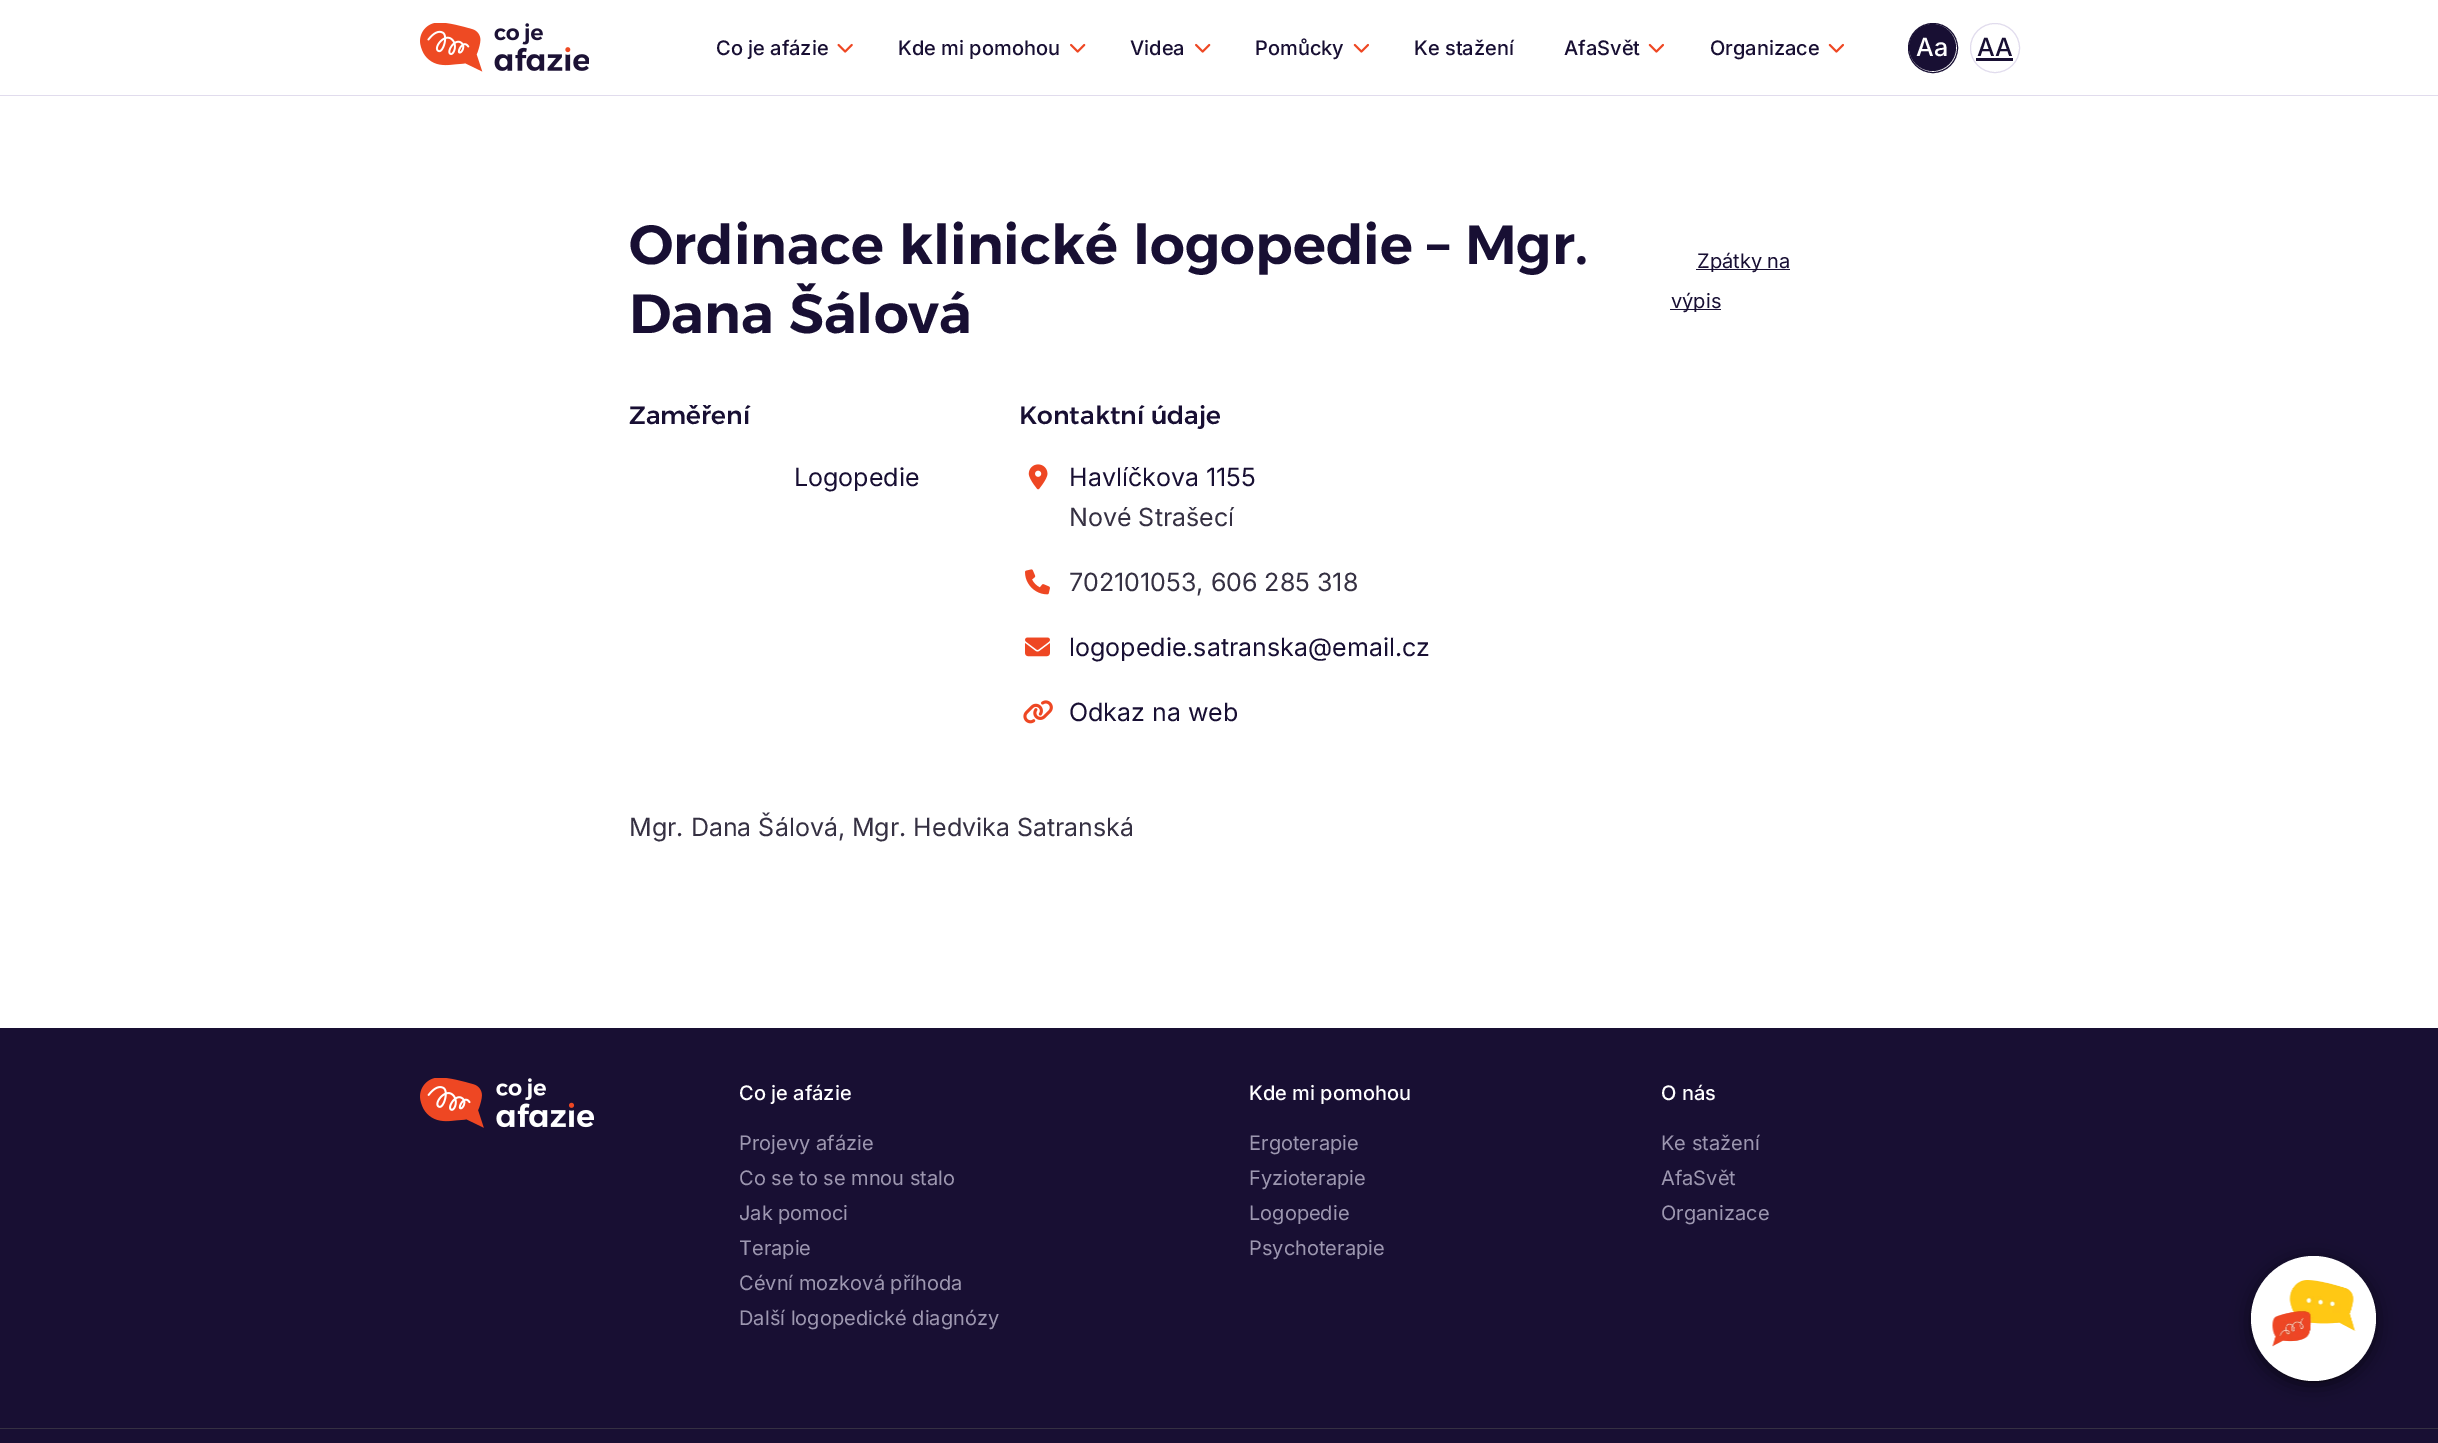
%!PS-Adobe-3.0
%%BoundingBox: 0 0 2438 1443
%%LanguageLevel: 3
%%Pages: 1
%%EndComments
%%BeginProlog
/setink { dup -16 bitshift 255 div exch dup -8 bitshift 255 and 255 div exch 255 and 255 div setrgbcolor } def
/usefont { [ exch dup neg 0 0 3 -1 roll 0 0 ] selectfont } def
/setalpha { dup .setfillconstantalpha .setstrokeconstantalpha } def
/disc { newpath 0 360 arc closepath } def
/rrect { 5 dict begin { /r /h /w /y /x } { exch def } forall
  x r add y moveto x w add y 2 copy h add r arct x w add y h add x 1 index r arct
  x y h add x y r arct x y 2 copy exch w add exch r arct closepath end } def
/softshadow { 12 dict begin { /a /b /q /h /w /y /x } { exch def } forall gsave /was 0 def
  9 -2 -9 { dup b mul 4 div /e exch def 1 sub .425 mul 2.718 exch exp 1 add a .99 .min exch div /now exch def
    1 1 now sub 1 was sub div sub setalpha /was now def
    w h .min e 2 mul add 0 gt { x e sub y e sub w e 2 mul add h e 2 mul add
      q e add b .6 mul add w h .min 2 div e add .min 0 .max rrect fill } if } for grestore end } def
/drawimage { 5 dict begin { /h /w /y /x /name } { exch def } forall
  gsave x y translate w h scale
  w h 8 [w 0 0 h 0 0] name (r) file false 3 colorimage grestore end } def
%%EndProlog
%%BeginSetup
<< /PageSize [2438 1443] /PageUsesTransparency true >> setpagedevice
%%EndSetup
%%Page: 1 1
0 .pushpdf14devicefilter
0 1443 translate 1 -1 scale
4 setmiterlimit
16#FFFFFF setink
0 0 2438 1443 rectfill
16#E1DCED setink
0 95 2438 1 rectfill
(img1.raw) 420 23 169 49 drawimage
/Inter-Medium 20 usefont
16#180F33 setink
716 55 moveto (Co je afázie) show
(img2.raw) 837 43 16 10 drawimage
898 55 moveto (Kde mi pomohou) show
(img3.raw) 1070 43 16 10 drawimage
1130 55 moveto (Videa) show
(img3.raw) 1195 43 16 10 drawimage
1255 55 moveto (Pomůcky) show
(img4.raw) 1353 43 16 10 drawimage
1414 55 moveto (Ke stažení) show
1564 55 moveto (AfaSvět) show
(img4.raw) 1648 43 16 10 drawimage
1710 55 moveto (Organizace) show
(img4.raw) 1828 43 16 10 drawimage
1932.5 47.5 23.5 disc fill
1933 48 24.5 disc stroke
/Inter-Medium 25 usefont
16#FFFFFF setink
1916 56 moveto (Aa) show
16#E1DCED setink
1995 48 24.5 disc stroke
16#180F33 setink
1977 56 moveto (AA) show
1976 58 37 3 rectfill
/Alexandria-SemiBold 55 usefont
629 264 moveto (Ordinace klinické logopedie – Mgr.) show
629 333 moveto (Dana Šálová) show
1696 269 94 1 rectfill
/Inter-Regular 20 usefont
1697 268 moveto (Zpátky na) show
1670 309 51 1 rectfill
1671 308 moveto (výpis) show
/Alexandria-Medium 25 usefont
629 424 moveto (Zaměření) show
/Inter-Regular 25 usefont
794 486 moveto (Logopedie) show
/Alexandria-Medium 25 usefont
1019 424 moveto (Kontaktní údaje) show
(img5.raw) 1028 464 20 26 drawimage
/Inter-Regular 25 usefont
1069 486 moveto (Havlíčkova 1155) show
16#353042 setink
1069 526 moveto (Nové Strašecí) show
(img6.raw) 1025 569 25 26 drawimage
1069 591 moveto (702101053, 606 285 318) show
(img7.raw) 1025 637 25 20 drawimage
16#180F33 setink
1069 656 moveto (logopedie.satranska@email.cz) show
(img8.raw) 1023 700 30 24 drawimage
1069 721 moveto (Odkaz na web) show
16#353042 setink
629 836 moveto (Mgr. Dana Šálová, Mgr. Hedvika Satranská) show
16#180F33 setink
0 1028 2438 415 rectfill
(img9.raw) 420 1078 174 50 drawimage
/Inter-Medium 20 usefont
16#FFFFFF setink
739 1100 moveto (Co je afázie) show
/Inter-Regular 20 usefont
16#9D97B0 setink
[
    [(Projevy afázie) 739 1150]
    [(Co se to se mnou stalo) 739 1185]
    [(Jak pomoci) 739 1220]
    [(Terapie) 739 1255]
    [(Cévní mozková příhoda) 739 1290]
    [(Další logopedické diagnózy) 739 1325]
] { aload pop moveto show } forall
/Inter-Medium 20 usefont
16#FFFFFF setink
1249 1100 moveto (Kde mi pomohou) show
/Inter-Regular 20 usefont
16#9D97B0 setink
[
    [(Ergoterapie) 1249 1150]
    [(Fyzioterapie) 1249 1185]
    [(Logopedie) 1249 1220]
    [(Psychoterapie) 1249 1255]
] { aload pop moveto show } forall
/Inter-Medium 20 usefont
16#FFFFFF setink
1661 1100 moveto (O nás) show
/Inter-Regular 20 usefont
16#9D97B0 setink
[
    [(Ke stažení) 1661 1150]
    [(AfaSvět) 1661 1185]
    [(Organizace) 1661 1220]
] { aload pop moveto show } forall
16#353042 setink
0 1428 2438 1 rectfill
16#000000 setink
2254 1263 120 120 60 0.5 0.2 softshadow
2251 1260 125 125 62.5 10 0.6 softshadow
16#FFFFFF setink
2313.5 1318.5 62.5 disc fill
(img10.raw) 2272 1280 84 67 drawimage
.poppdf14devicefilter showpage
%%EOF
